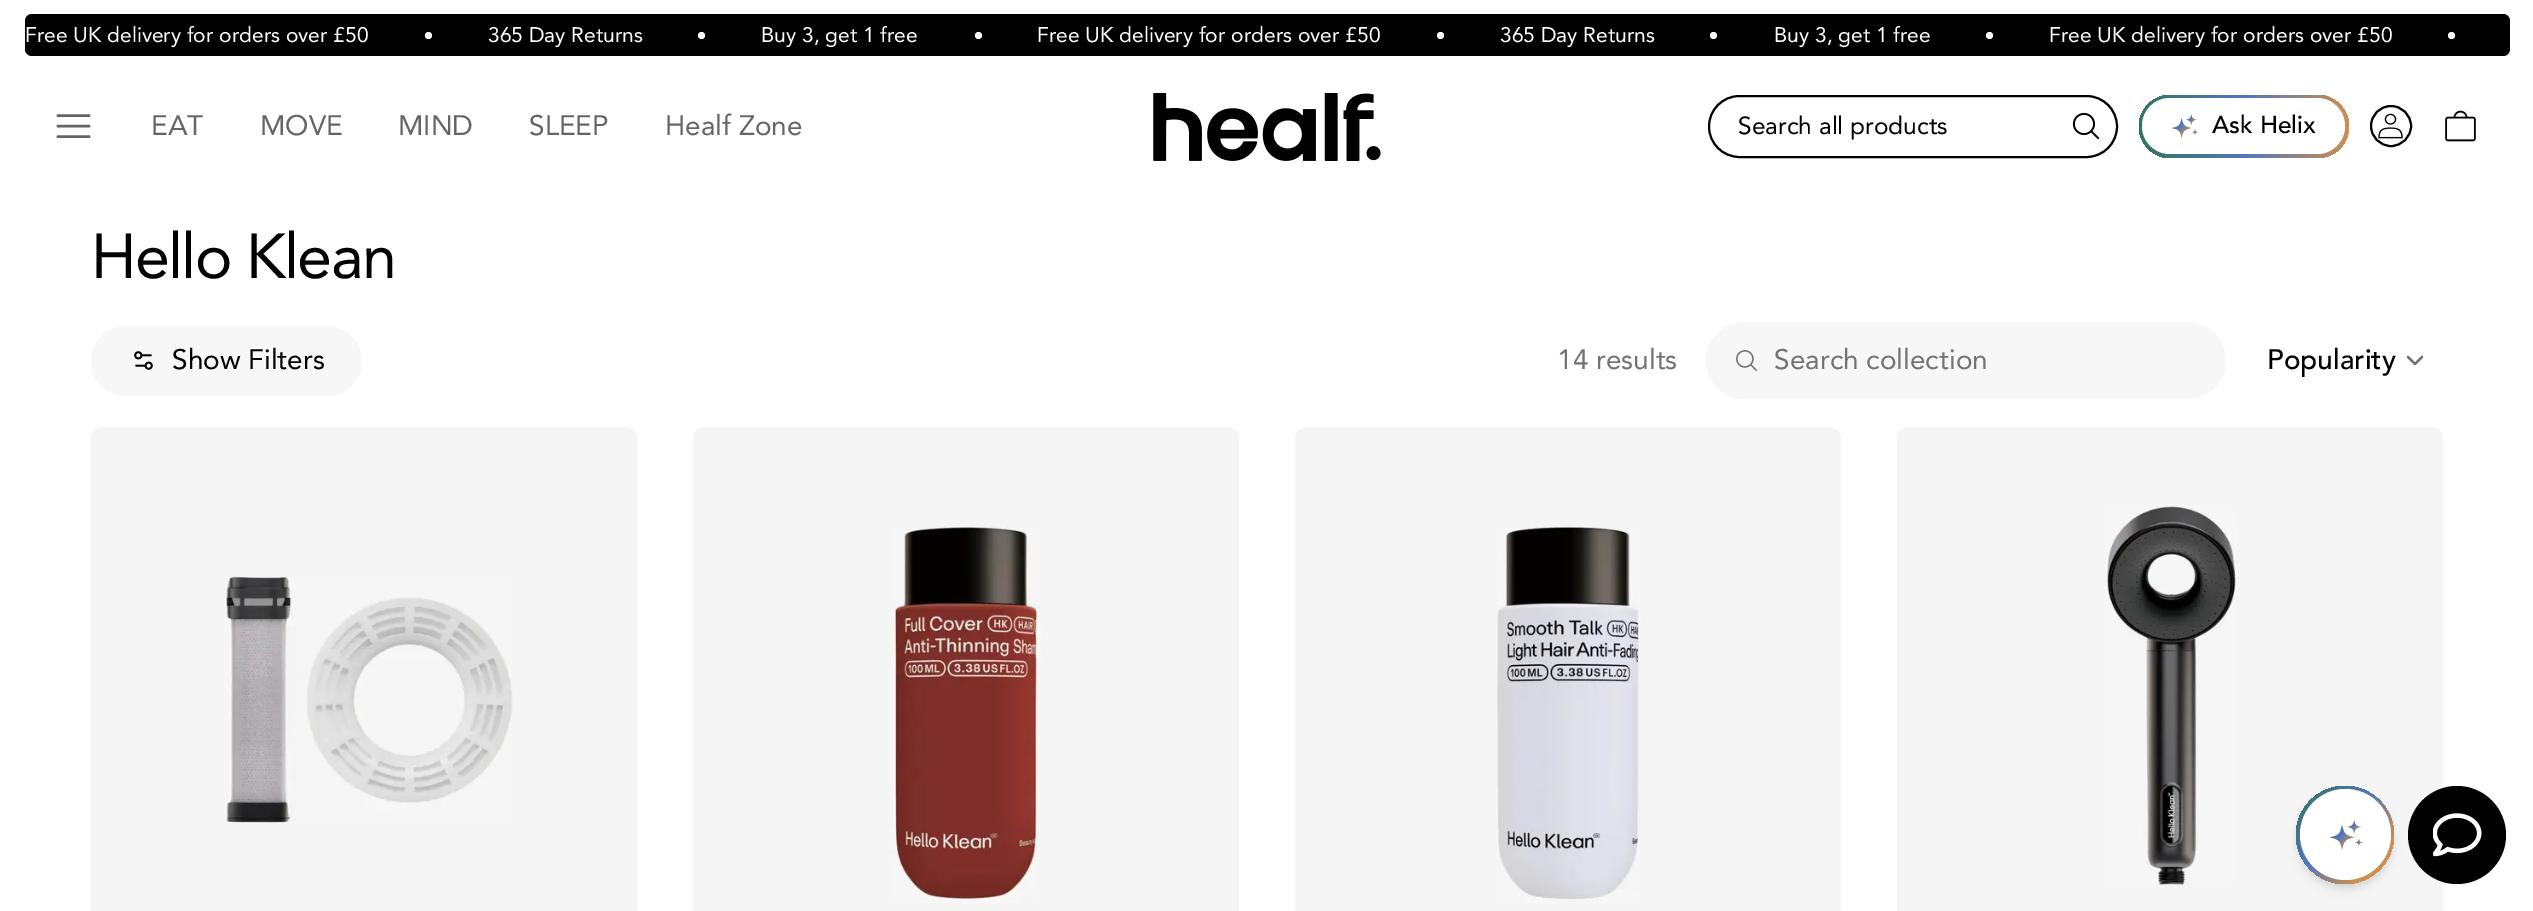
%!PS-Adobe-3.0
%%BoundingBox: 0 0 2533 911
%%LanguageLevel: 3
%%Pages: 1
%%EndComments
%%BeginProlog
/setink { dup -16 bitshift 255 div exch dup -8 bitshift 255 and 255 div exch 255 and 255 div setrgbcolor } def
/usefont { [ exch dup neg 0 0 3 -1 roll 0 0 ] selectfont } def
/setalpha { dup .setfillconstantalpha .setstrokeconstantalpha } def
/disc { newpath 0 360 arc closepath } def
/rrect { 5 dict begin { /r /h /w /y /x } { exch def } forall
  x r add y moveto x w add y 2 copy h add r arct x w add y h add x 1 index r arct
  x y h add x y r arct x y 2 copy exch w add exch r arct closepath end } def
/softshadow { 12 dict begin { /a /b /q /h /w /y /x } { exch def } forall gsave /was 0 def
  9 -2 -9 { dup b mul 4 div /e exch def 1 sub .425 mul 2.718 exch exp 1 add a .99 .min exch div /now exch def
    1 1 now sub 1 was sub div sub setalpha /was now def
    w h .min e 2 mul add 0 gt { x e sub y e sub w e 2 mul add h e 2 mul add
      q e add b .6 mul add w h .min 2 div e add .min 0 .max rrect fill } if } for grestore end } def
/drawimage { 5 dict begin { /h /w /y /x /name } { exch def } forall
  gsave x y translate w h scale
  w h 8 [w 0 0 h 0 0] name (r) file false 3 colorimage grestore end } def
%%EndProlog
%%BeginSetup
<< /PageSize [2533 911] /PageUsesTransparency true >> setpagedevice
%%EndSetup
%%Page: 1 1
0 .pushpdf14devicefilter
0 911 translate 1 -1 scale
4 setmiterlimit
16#FFFFFF setink
0 0 2533 911 rectfill
16#000000 setink
25 14 2485 42 7 rrect fill
/Avenir-Regular 21 usefont
16#FFFFFF setink
25 42 moveto (Free UK delivery for orders over £50) show
428.5 35.5 3.5 disc fill
488 42 moveto (365 Day Returns) show
701.5 35.5 3.5 disc fill
761 42 moveto (Buy 3, get 1 free) show
978.5 35.5 3.5 disc fill
1037 42 moveto (Free UK delivery for orders over £50) show
1440.5 35.5 3.5 disc fill
1500 42 moveto (365 Day Returns) show
1713.5 35.5 3.5 disc fill
1774 42 moveto (Buy 3, get 1 free) show
1989.5 35.5 3.5 disc fill
2049 42 moveto (Free UK delivery for orders over £50) show
2451.5 35.5 3.5 disc fill
16#656565 setink
2.6 setlinewidth
1 setlinecap
1 setlinejoin
58 126 moveto 89 126 lineto 58 115.5 moveto 89 115.5 lineto 58 136.5 moveto 89 136.5 lineto stroke
/Avenir-Regular 28 usefont
[
    [(EAT) 151 135]
    [(MOVE) 260 135]
    [(MIND) 398 135]
    [(SLEEP) 529 135]
    [(Healf Zone) 665 135]
] { aload pop moveto show } forall
(img1.raw) 1153 93 228 68 drawimage
16#000000 setink
2 setlinewidth
0 setlinecap
0 setlinejoin
1709 96 408 61 30.5 rrect stroke
/Avenir-Regular 24.5 usefont
1738 134 moveto (Search all products) show
(img2.raw) 2072 112 28 28 drawimage
gsave 2139 95 210 63 31.5 rrect clip newpath
<< /ShadingType 2 /ColorSpace /DeviceRGB /Coords [2139 126 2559 126] /Extend [true true] /Function << /FunctionType 3 /Domain [0 1] /Functions [<< /FunctionType 2 /Domain [0 1] /C0 [0.196 0.459 0.373] /C1 [0.325 0.467 0.733] /N 1 >> << /FunctionType 2 /Domain [0 1] /C0 [0.325 0.467 0.733] /C1 [0.796 0.561 0.318] /N 1 >> << /FunctionType 2 /Domain [0 1] /C0 [0.796 0.561 0.318] /C1 [0.325 0.467 0.733] /N 1 >> << /FunctionType 2 /Domain [0 1] /C0 [0.325 0.467 0.733] /C1 [0.196 0.459 0.373] /N 1 >>] /Bounds [0.25 0.5 0.75] /Encode [0 1 0 1 0 1 0 1] >> >> shfill grestore
16#FFFFFF setink
2142 98 203 56 28 rrect fill
(img3.raw) 2172 114 26 24 drawimage
/Avenir-Medium 24.5 usefont
16#000000 setink
2212 133 moveto (Ask Helix) show
2391 126 20 disc stroke
(img4.raw) 2378 113 25 26 drawimage
(img5.raw) 2445 110 31 32 drawimage
/Avenir-Regular 63 usefont
91 278 moveto -1.75 0 (Hello Klean) ashow
16#F7F7F7 setink
91 326 271 70 35 rrect fill
(img6.raw) 134 351 19 19 drawimage
/Avenir-Regular 28 usefont
16#000000 setink
172 369 moveto (Show Filters) show
16#737373 setink
1557 369 moveto (14 results) show
16#F7F7F7 setink
1706 322 520 77 38.5 rrect fill
(img7.raw) 1736 350 21 21 drawimage
16#737373 setink
1774 369 moveto (Search collection) show
/Avenir-Medium 28 usefont
16#000000 setink
2267 369 moveto (Popularity) show
16#737373 setink
2.3 setlinewidth
1 setlinecap
1 setlinejoin
2408 357 moveto 2415 364 lineto 2422 357 lineto stroke
16#F5F5F5 setink
91 427 546 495 11 rrect fill
(img8.raw) 224 576 289 247 drawimage
693 427 546 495 11 rrect fill
(img9.raw) 891 526 151 377 drawimage
1295 427 546 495 11 rrect fill
(img10.raw) 1497 526 144 377 drawimage
1897 427 546 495 11 rrect fill
(img11.raw) 2105 506 132 380 drawimage
16#000000 setink
2300 793 91 91 45.5 3.5 0.1 softshadow
2298 795 94 94 47 5 0.1 softshadow
gsave 2345 835 49 disc clip newpath
<< /ShadingType 2 /ColorSpace /DeviceRGB /Coords [2293 790 2397 880] /Extend [true true] /Function << /FunctionType 3 /Domain [0 1] /Functions [<< /FunctionType 2 /Domain [0 1] /C0 [0.196 0.459 0.373] /C1 [0.196 0.459 0.373] /N 1 >> << /FunctionType 2 /Domain [0 1] /C0 [0.196 0.459 0.373] /C1 [0.325 0.467 0.733] /N 1 >> << /FunctionType 2 /Domain [0 1] /C0 [0.325 0.467 0.733] /C1 [0.796 0.561 0.318] /N 1 >> << /FunctionType 2 /Domain [0 1] /C0 [0.796 0.561 0.318] /C1 [0.796 0.561 0.318] /N 1 >>] /Bounds [0.03 0.44 0.78] /Encode [0 1 0 1 0 1 0 1] >> >> shfill grestore
16#FFFFFF setink
2345.5 834.5 45.5 disc fill
(img12.raw) 2330 820 33 30 drawimage
16#000000 setink
2457 835 49 disc fill
(img13.raw) 2433 813 49 44 drawimage
.poppdf14devicefilter showpage
%%EOF
